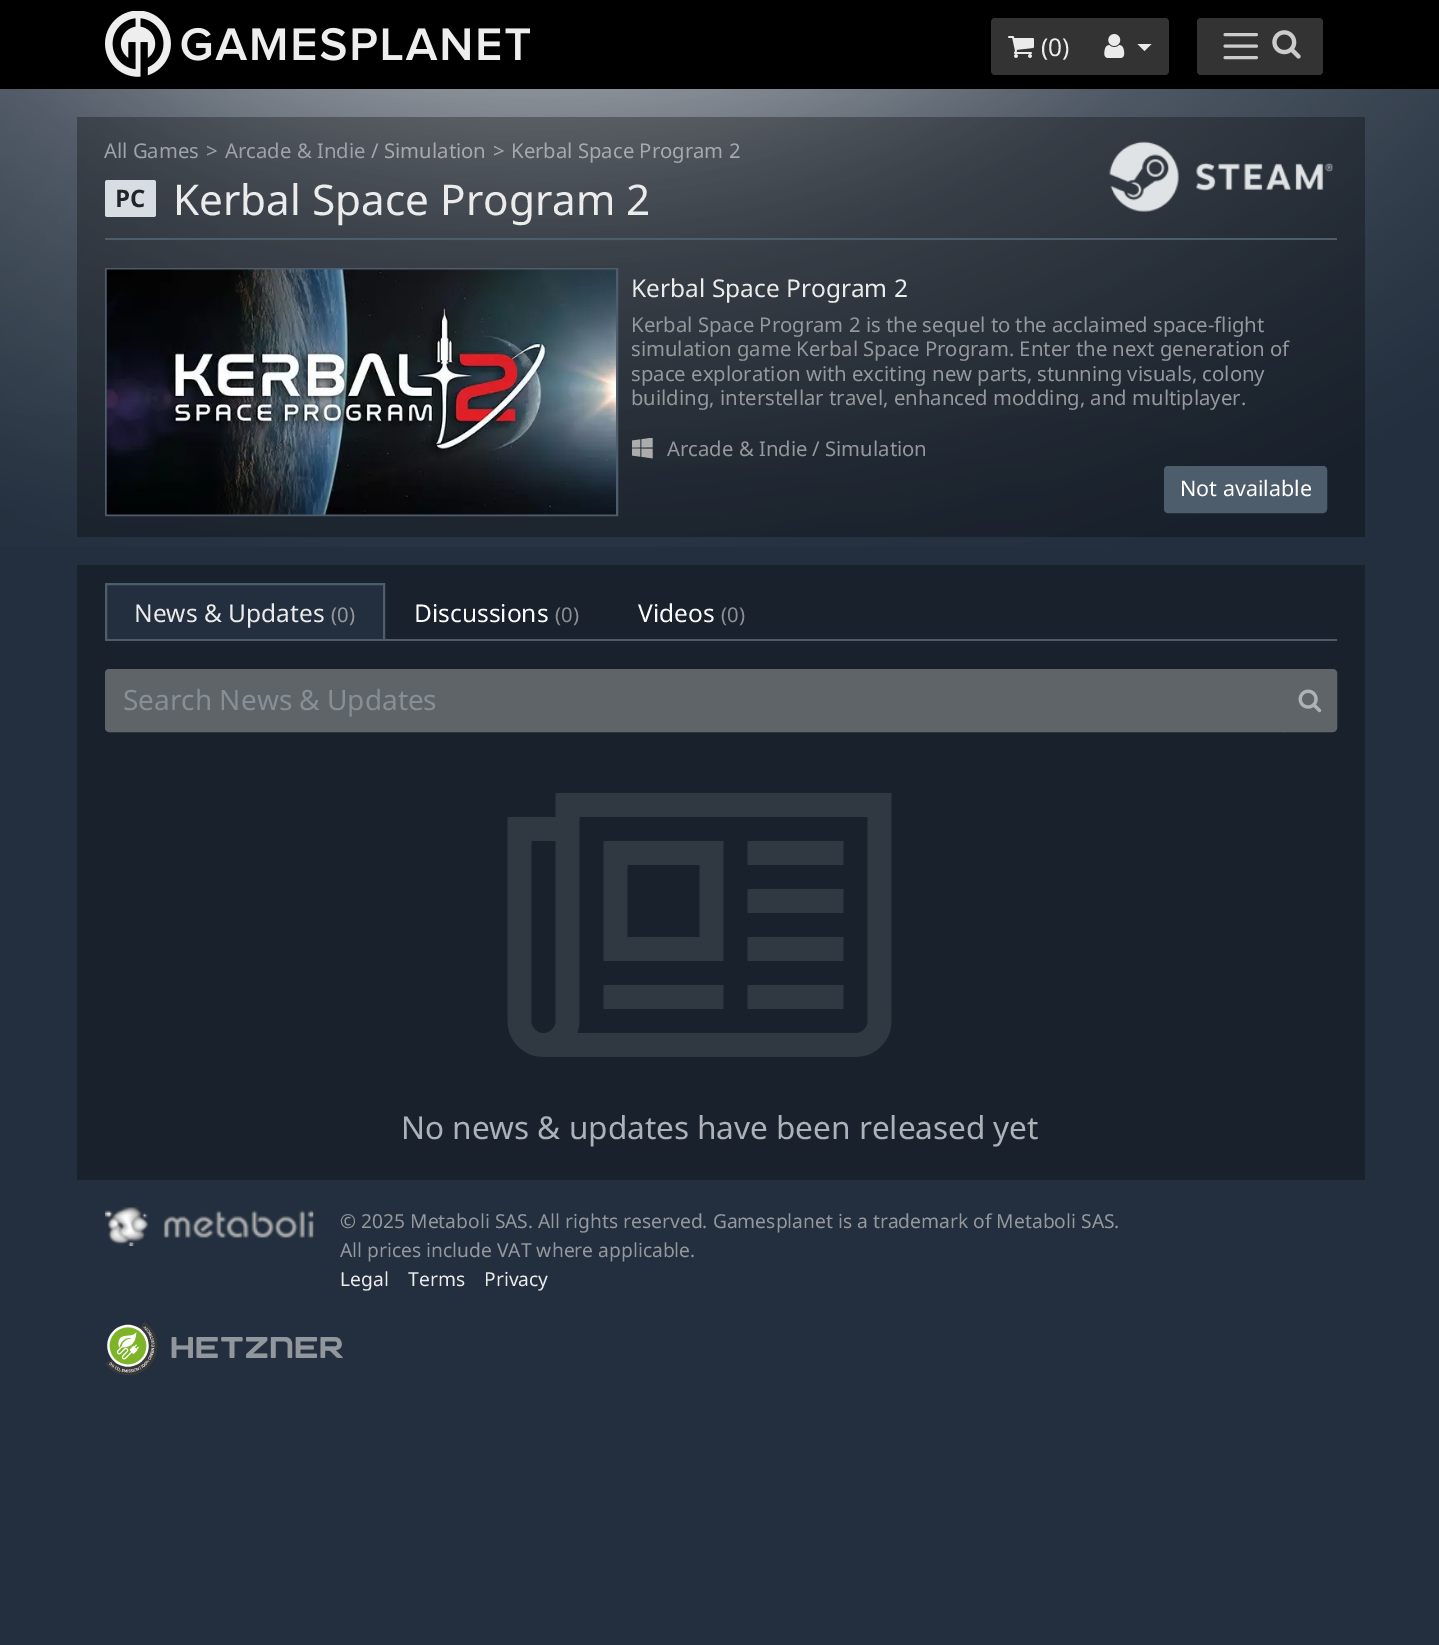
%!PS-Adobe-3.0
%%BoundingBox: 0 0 1439 1645
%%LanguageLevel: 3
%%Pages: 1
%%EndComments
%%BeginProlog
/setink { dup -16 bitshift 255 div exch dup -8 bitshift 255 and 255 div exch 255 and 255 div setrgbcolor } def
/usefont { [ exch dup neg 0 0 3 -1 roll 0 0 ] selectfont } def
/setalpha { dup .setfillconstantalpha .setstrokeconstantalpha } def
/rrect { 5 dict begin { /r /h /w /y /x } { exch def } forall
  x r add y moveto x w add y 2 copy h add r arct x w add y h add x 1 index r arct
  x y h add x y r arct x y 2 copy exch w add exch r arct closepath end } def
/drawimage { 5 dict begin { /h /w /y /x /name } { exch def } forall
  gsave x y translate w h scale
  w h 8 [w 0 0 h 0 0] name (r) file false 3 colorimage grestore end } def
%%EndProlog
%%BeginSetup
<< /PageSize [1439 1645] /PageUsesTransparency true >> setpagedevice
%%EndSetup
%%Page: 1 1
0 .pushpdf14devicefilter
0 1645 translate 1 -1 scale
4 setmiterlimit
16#232F3E setink
0 0 1439 1645 rectfill
(img1.raw) 0 89 1439 458 drawimage
16#000000 setink
0 0 1439 89 rectfill
(img2.raw) 105 11 425 66 drawimage
16#333333 setink
995 18 moveto 1089 18 lineto 1089 75 lineto 995 75 lineto 993 75 991 73 991 71 curveto 991 22 lineto 991 20 993 18 995 18 curveto closepath fill
(img3.raw) 1008 36 26 22 drawimage
/NotoSans-Regular 24.5 usefont
16#EBEBEB setink
1041 56 moveto (\(0\)) show
16#333333 setink
1087 18 moveto 1165 18 lineto 1167 18 1169 20 1169 22 curveto 1169 71 lineto 1169 73 1167 75 1165 75 curveto 1087 75 lineto closepath fill
(img4.raw) 1104 34 21 24 drawimage
16#EBEBEB setink
1137.5 44 moveto 1151.5 44 lineto 1144.5 51 lineto closepath fill
16#333333 setink
1197 18 126 57 4 rrect fill
16#CCCCCC setink
2.9 setlinewidth
1 setlinecap
1225 34.5 moveto 1256.5 34.5 lineto 1225 46 moveto 1256.5 46 lineto 1225 57.5 moveto 1256.5 57.5 lineto stroke
(img5.raw) 1272 30 29 29 drawimage
0.3 setalpha
16#000000 setink
77 117 1288 420 rectfill
/NotoSans-Regular 20.3 usefont
1 setalpha
16#9FA2A6 setink
[
    [(All Games) 104 158]
    [(>) 206 158]
    [(Arcade & Indie) 225 158]
] { aload pop moveto show } forall
16#A6A9AD setink
[
    [(/) 371 158]
    [(Simulation) 384 158]
    [(>) 493 158]
    [(Kerbal Space Program 2) 511 158]
] { aload pop moveto show } forall
16#D7DDE2 setink
105 180 51 37 2.5 rrect fill
/NotoSans-Bold 24 usefont
16#212529 setink
115 207 moveto (PC) show
16#4E5D6C setink
105 238 1232 2 rectfill
/NotoSans-Regular 42.25 usefont
16#EBEBEB setink
173 215 moveto (Kerbal Space Program 2) show
(img6.raw) 1109 141 224 71 drawimage
16#4E5D6C setink
2 setlinewidth
0 setlinecap
106 269 511 246 rectstroke
(img7.raw) 106 269 510 246 drawimage
/NotoSans-Regular 24.5 usefont
16#EBEBEB setink
631 297 moveto (Kerbal Space Program 2) show
/NotoSans-Regular 20.3 usefont
16#95989D setink
[
    [(Kerbal Space Program 2 is the sequel to the acclaimed space-flight) 631 332]
    [(simulation game Kerbal Space Program. Enter the next generation of) 631 356]
    [(space exploration with exciting new parts, stunning visuals, colony) 631 381]
    [(building, interstellar travel, enhanced modding, and multiplayer.) 631 405]
] { aload pop moveto show } forall
(img8.raw) 632 438 21 21 drawimage
[
    [(Arcade & Indie) 667 456]
    [(/) 812 456]
    [(Simulation) 825 456]
] { aload pop moveto show } forall
16#4E5D6C setink
1165 467 161 45 3 rrect gsave fill grestore
stroke
/NotoSans-Regular 21.5 usefont
16#FFFFFF setink
1180 496 moveto (Not available) show
[
    [77 565 1288 615 16#19212C]
    [105 639 1232 2 16#4E5D6C]
    [107 585 276 54 16#232F3E]
] { aload pop setink rectfill } forall
gsave
105 583 1232 56 rectclip
16#4E5D6C setink
106 584 278 56 rectstroke
grestore
/NotoSans-Regular 24.5 usefont
16#EBEBEB setink
134 622 moveto (News & Updates) show
/NotoSans-Regular 20.3 usefont
16#95989D setink
331 622 moveto (\(0\)) show
/NotoSans-Regular 24.5 usefont
16#FFFFFF setink
414 622 moveto (Discussions) show
/NotoSans-Regular 20.3 usefont
16#8C9096 setink
555 622 moveto (\(0\)) show
/NotoSans-Regular 24.5 usefont
16#FFFFFF setink
638 622 moveto (Videos) show
/NotoSans-Regular 20.3 usefont
16#8C9096 setink
721 622 moveto (\(0\)) show
16#5F6468 setink
109 670 moveto 1284 670 lineto 1284 731 lineto 109 731 lineto 107.5 731 106 729.5 106 728 curveto 106 673 lineto 106 671.5 107.5 670 109 670 curveto closepath gsave fill grestore
stroke
/NotoSans-Regular 28 usefont
16#868E96 setink
123 710 moveto (Search News & Updates) show
16#5F6468 setink
1284 670 moveto 1333 670 lineto 1334.5 670 1336 671.5 1336 673 curveto 1336 728 lineto 1336 729.5 1334.5 731 1333 731 curveto 1284 731 lineto closepath gsave fill grestore
stroke
(img9.raw) 1298 689 24 24 drawimage
(img10.raw) 507 793 385 264 drawimage
/NotoSans-Regular 31.5 usefont
16#ACB2B8 setink
401 1139 moveto (No news & updates have been released yet) show
(img11.raw) 105 1207 209 39 drawimage
/NotoSans-Regular 19.25 usefont
16#95989D setink
340 1228 moveto (© 2025 Metaboli SAS. All rights reserved. Gamesplanet is a trademark of Metaboli SAS.) show
340 1257 moveto (All prices include VAT where applicable.) show
16#EBEBEB setink
[
    [(Legal) 340 1286]
    [(Terms) 408 1286]
    [(Privacy) 484 1286]
] { aload pop moveto show } forall
(img12.raw) 105 1321 53 55 drawimage
(img13.raw) 171 1337 172 21 drawimage
.poppdf14devicefilter showpage
%%EOF
